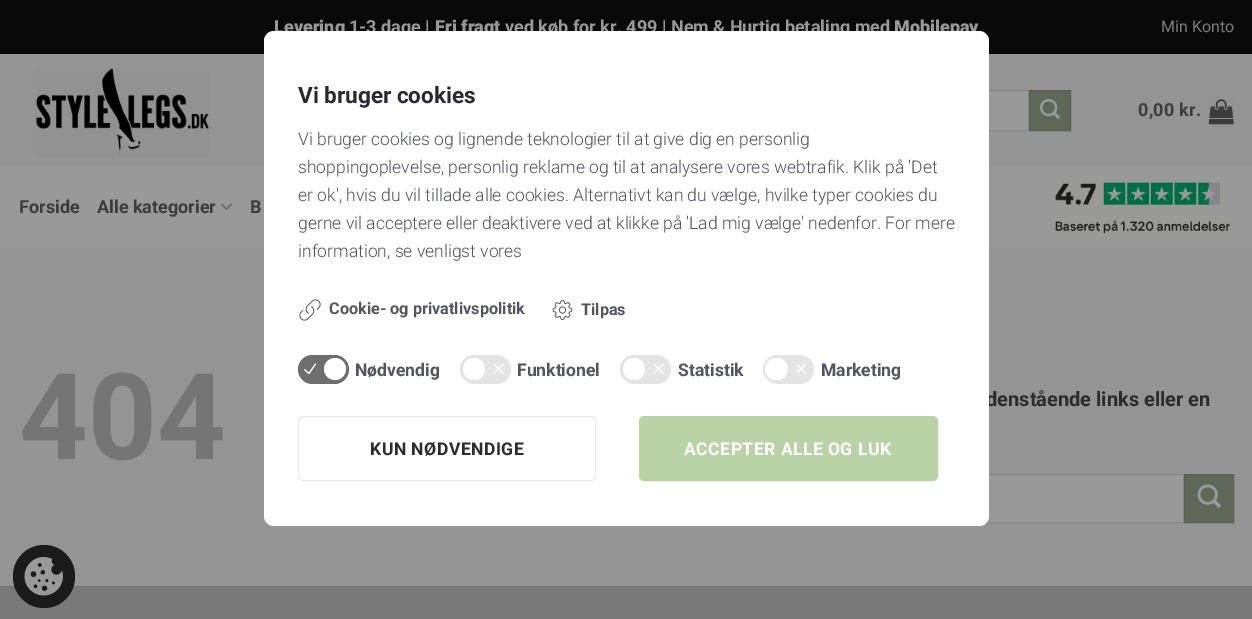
%!PS-Adobe-3.0
%%BoundingBox: 0 0 1252 619
%%LanguageLevel: 3
%%Pages: 1
%%EndComments
%%BeginProlog
/setink { dup -16 bitshift 255 div exch dup -8 bitshift 255 and 255 div exch 255 and 255 div setrgbcolor } def
/usefont { [ exch dup neg 0 0 3 -1 roll 0 0 ] selectfont } def
/disc { newpath 0 360 arc closepath } def
/rrect { 5 dict begin { /r /h /w /y /x } { exch def } forall
  x r add y moveto x w add y 2 copy h add r arct x w add y h add x 1 index r arct
  x y h add x y r arct x y 2 copy exch w add exch r arct closepath end } def
/drawimage { 5 dict begin { /h /w /y /x /name } { exch def } forall
  gsave x y translate w h scale
  w h 8 [w 0 0 h 0 0] name (r) file false 3 colorimage grestore end } def
%%EndProlog
%%BeginSetup
<< /PageSize [1252 619] >> setpagedevice
%%EndSetup
%%Page: 1 1
0 619 translate 1 -1 scale
4 setmiterlimit
16#949494 setink
0 0 1252 619 rectfill
16#090909 setink
0 0 1252 54 rectfill
/Roboto-Black 18 usefont
16#999999 setink
274 33 moveto (Levering) show
/Roboto-Bold 18 usefont
349 33 moveto (1-3 dage |) show
/Roboto-Black 18 usefont
435 33 moveto (Fri fragt) show
/Roboto-Bold 18 usefont
505 33 moveto (ved køb for kr. 499 | Nem & Hurtig betaling med) show
/Roboto-Black 18 usefont
894 33 moveto (Mobilepay) show
/Roboto-Regular 16 usefont
16#7C7C7C setink
1161 32 moveto (Min Konto) show
(img1.raw) 35 68 174 90 drawimage
16#999999 setink
989 91 39 39 rectfill
16#858585 setink
306.5 90.5 722 40 rectstroke
16#5E6758 setink
1029.5 90.5 moveto 1070.5 90.5 lineto 1070.5 130.5 lineto 1029.5 130.5 lineto closepath gsave fill grestore
16#596253 setink
stroke
(img2.raw) 1040 99 20 20 drawimage
/Roboto-Bold 18 usefont
16#3D3D3D setink
1138 116 moveto 0.25 0 (0,00 kr.) ashow
(img3.raw) 1208 99 26 26 drawimage
16#999999 setink
0 166 1252 82 rectfill
16#3D3D3D setink
19 213 moveto (Forside) show
97 213 moveto (Alle kategorier) show
(img4.raw) 220 203 12 7 drawimage
250 213 moveto (B) show
(img5.raw) 1055 182 176 52 drawimage
/Roboto-Bold 120 usefont
16#757575 setink
19 459 moveto (404) show
/Roboto-Bold 20 usefont
16#2C2C2C setink
986 406 moveto (denstående links eller en) show
16#999999 setink
987 475 196 47 rectfill
16#858585 setink
333.5 474.5 850 48 rectstroke
16#5E6758 setink
1184.5 474.5 moveto 1233.5 474.5 lineto 1233.5 522.5 lineto 1184.5 522.5 lineto closepath gsave fill grestore
16#596253 setink
stroke
(img6.raw) 1197 484 24 24 drawimage
16#797979 setink
0 587 1252 32 rectfill
16#737373 setink
0 586 1252 1 rectfill
16#FFFFFF setink
264 31 725 495 10 rrect fill
/Roboto-Bold 22.5 usefont
16#292834 setink
298 103 moveto (Vi bruger cookies) show
/Roboto-Light 17.5 usefont
16#545465 setink
[
    [(Vi bruger cookies og lignende teknologier til at give dig en personlig) 298 145]
    [(shoppingoplevelse, personlig reklame og til at analysere vores webtrafik. Klik på 'Det) 298 173]
    [(er ok', hvis du vil tillade alle cookies. Alternativt kan du vælge, hvilke typer cookies du) 298 201]
    [(gerne vil acceptere eller deaktivere ved at klikke på 'Lad mig vælge' nedenfor. For mere) 298 229]
    [(information, se venligst vores) 298 257]
] { aload pop moveto show } forall
(img7.raw) 299 299 22 22 drawimage
/Roboto-Bold 16.25 usefont
329 314 moveto (Cookie- og privatlivspolitik) show
(img8.raw) 552 300 21 20 drawimage
581 315 moveto (Tilpas) show
16#6E6E6E setink
298 355 51 29 14.5 rrect fill
16#FFFFFF setink
1.1 setlinewidth
1 setlinecap
1 setlinejoin
304.5 369.5 moveto 309 373.5 lineto 315.5 364 lineto stroke
335 369 11 disc fill
/Roboto-Bold 17.5 usefont
16#545465 setink
355 376 moveto (Nødvendig) show
16#E4E4E4 setink
460 355 51 29 14.5 rrect fill
16#FFFFFF setink
474 369 11 disc fill
494.5 373 moveto 503 364.5 lineto 494.5 364.5 moveto 503 373 lineto stroke
16#545465 setink
517 376 moveto (Funktionel) show
16#E4E4E4 setink
620 355 51 29 14.5 rrect fill
16#FFFFFF setink
634 369 11 disc fill
654.5 373 moveto 663 364.5 lineto 654.5 364.5 moveto 663 373 lineto stroke
16#545465 setink
678 376 moveto (Statistik) show
16#E4E4E4 setink
763 355 51 29 14.5 rrect fill
16#FFFFFF setink
765 358 23 22 11 rrect fill
797 373 moveto 805.5 364.5 lineto 797 364.5 moveto 805.5 373 lineto stroke
16#545465 setink
821 376 moveto (Marketing) show
16#EAEAEB setink
1 setlinewidth
0 setlinecap
0 setlinejoin
298.5 416.5 297 64 4.5 rrect stroke
16#2C2C2C setink
370 455 moveto 0.5 0 (KUN NØDVENDIGE) ashow
16#B9D2A6 setink
639.5 416.5 298 64 4.5 rrect gsave fill grestore
stroke
16#FFFFFF setink
684 455 moveto 0.5 0 (ACCEPTER ALLE OG LUK) ashow
16#1B1B1B setink
13 545 62 63 31 rrect fill
(img9.raw) 24 557 39 39 drawimage
showpage
%%EOF
